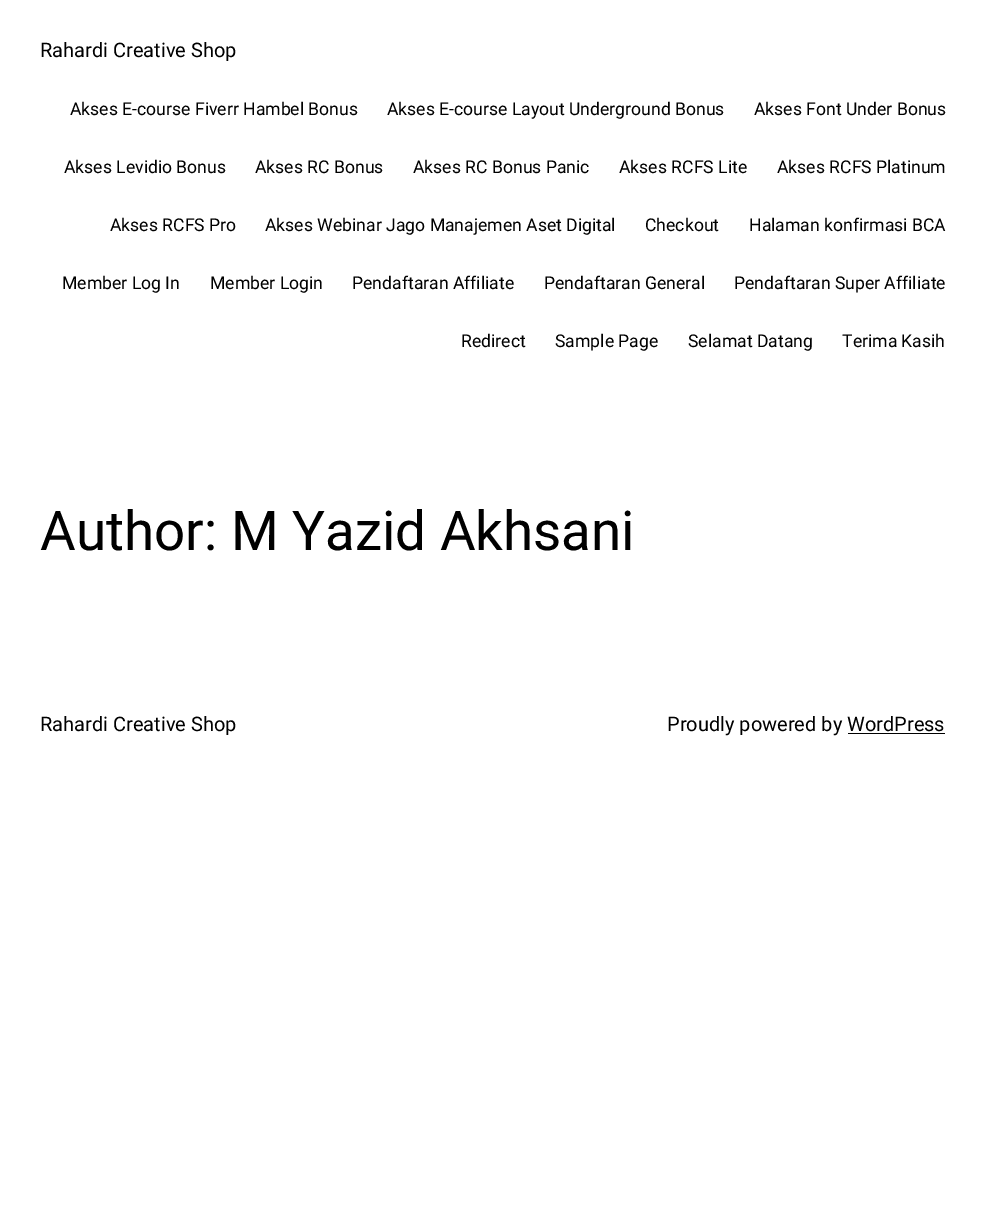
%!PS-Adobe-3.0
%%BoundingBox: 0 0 984 1205
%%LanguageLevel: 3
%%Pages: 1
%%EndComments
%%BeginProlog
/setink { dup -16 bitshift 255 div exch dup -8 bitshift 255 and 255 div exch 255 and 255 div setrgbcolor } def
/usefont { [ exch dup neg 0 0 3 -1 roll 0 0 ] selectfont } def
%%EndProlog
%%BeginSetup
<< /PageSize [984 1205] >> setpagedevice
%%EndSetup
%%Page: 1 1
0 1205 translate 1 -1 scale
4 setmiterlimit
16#FFFFFF setink
0 0 984 1205 rectfill
/Roboto-Regular 20 usefont
16#000000 setink
40 57 moveto (Rahardi Creative Shop) show
/Roboto-Regular 17.6 usefont
[
    [(Akses E-course Fiverr Hambel Bonus) 70 115]
    [(Akses E-course Layout Underground Bonus) 387 115]
    [(Akses Font Under Bonus) 754 115]
    [(Akses Levidio Bonus) 64 173]
    [(Akses RC Bonus) 255 173]
    [(Akses RC Bonus Panic) 413 173]
    [(Akses RCFS Lite) 619 173]
    [(Akses RCFS Platinum) 777 173]
    [(Akses RCFS Pro) 110 231]
    [(Akses Webinar Jago Manajemen Aset Digital) 265 231]
    [(Checkout) 645 231]
    [(Halaman konfirmasi BCA) 749 231]
    [(Member Log In) 62 289]
    [(Member Login) 210 289]
    [(Pendaftaran Affiliate) 352 289]
    [(Pendaftaran General) 544 289]
    [(Pendaftaran Super Affiliate) 734 289]
    [(Redirect) 461 347]
    [(Sample Page) 555 347]
    [(Selamat Datang) 688 347]
    [(Terima Kasih) 842 347]
] { aload pop moveto show } forall
/Roboto-Regular 54.75 usefont
40 550 moveto (Author: M Yazid Akhsani) show
/Roboto-Regular 20 usefont
40 731 moveto (Rahardi Creative Shop) show
667 731 moveto (Proudly powered by WordPress) show
848 733 97 1 rectfill
showpage
%%EOF
